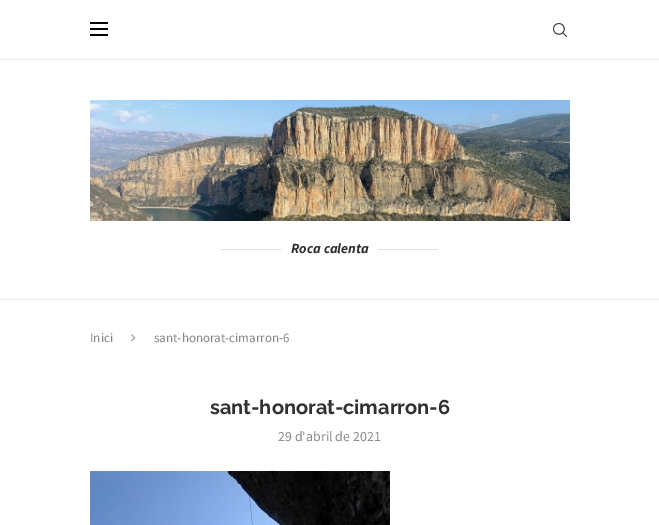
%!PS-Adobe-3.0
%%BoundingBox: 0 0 659 525
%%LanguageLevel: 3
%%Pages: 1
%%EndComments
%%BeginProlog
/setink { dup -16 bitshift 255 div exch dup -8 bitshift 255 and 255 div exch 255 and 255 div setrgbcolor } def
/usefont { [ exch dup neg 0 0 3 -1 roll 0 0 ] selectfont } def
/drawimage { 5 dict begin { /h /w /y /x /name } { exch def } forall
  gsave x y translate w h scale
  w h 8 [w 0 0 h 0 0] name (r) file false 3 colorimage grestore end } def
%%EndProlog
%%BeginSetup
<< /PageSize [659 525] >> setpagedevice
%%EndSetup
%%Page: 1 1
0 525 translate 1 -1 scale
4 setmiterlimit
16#FFFFFF setink
0 0 659 525 rectfill
[
    [0 59 659 1 16#ECECEC]
    [90 22 18 2 16#000000]
    [90 28 18 2 16#000000]
    [90 34 18 2 16#000000]
] { aload pop setink rectfill } forall
(img1.raw) 553 23 14 14 drawimage
16#ECECEC setink
0 299 659 1 rectfill
(img2.raw) 90 100 480 121 drawimage
16#DEDEDE setink
221 249 60 1 rectfill
/SourceSansPro-BoldItalic 14 usefont
16#313131 setink
291 253 moveto (Roca calenta) show
16#DEDEDE setink
378 249 60 1 rectfill
/SourceSansPro-Regular 13 usefont
16#888888 setink
90 342 moveto (Inici) show
(img3.raw) 131 334 5 8 drawimage
154 342 moveto (sant-honorat-cimarron-6) show
/Raleway-Bold 20 usefont
16#313131 setink
210 414 moveto (sant-honorat-cimarron-6) show
/SourceSansPro-Regular 14 usefont
16#888888 setink
278 441 moveto (29 d'abril de 2021) show
(img4.raw) 90 471 300 54 drawimage
showpage
%%EOF
